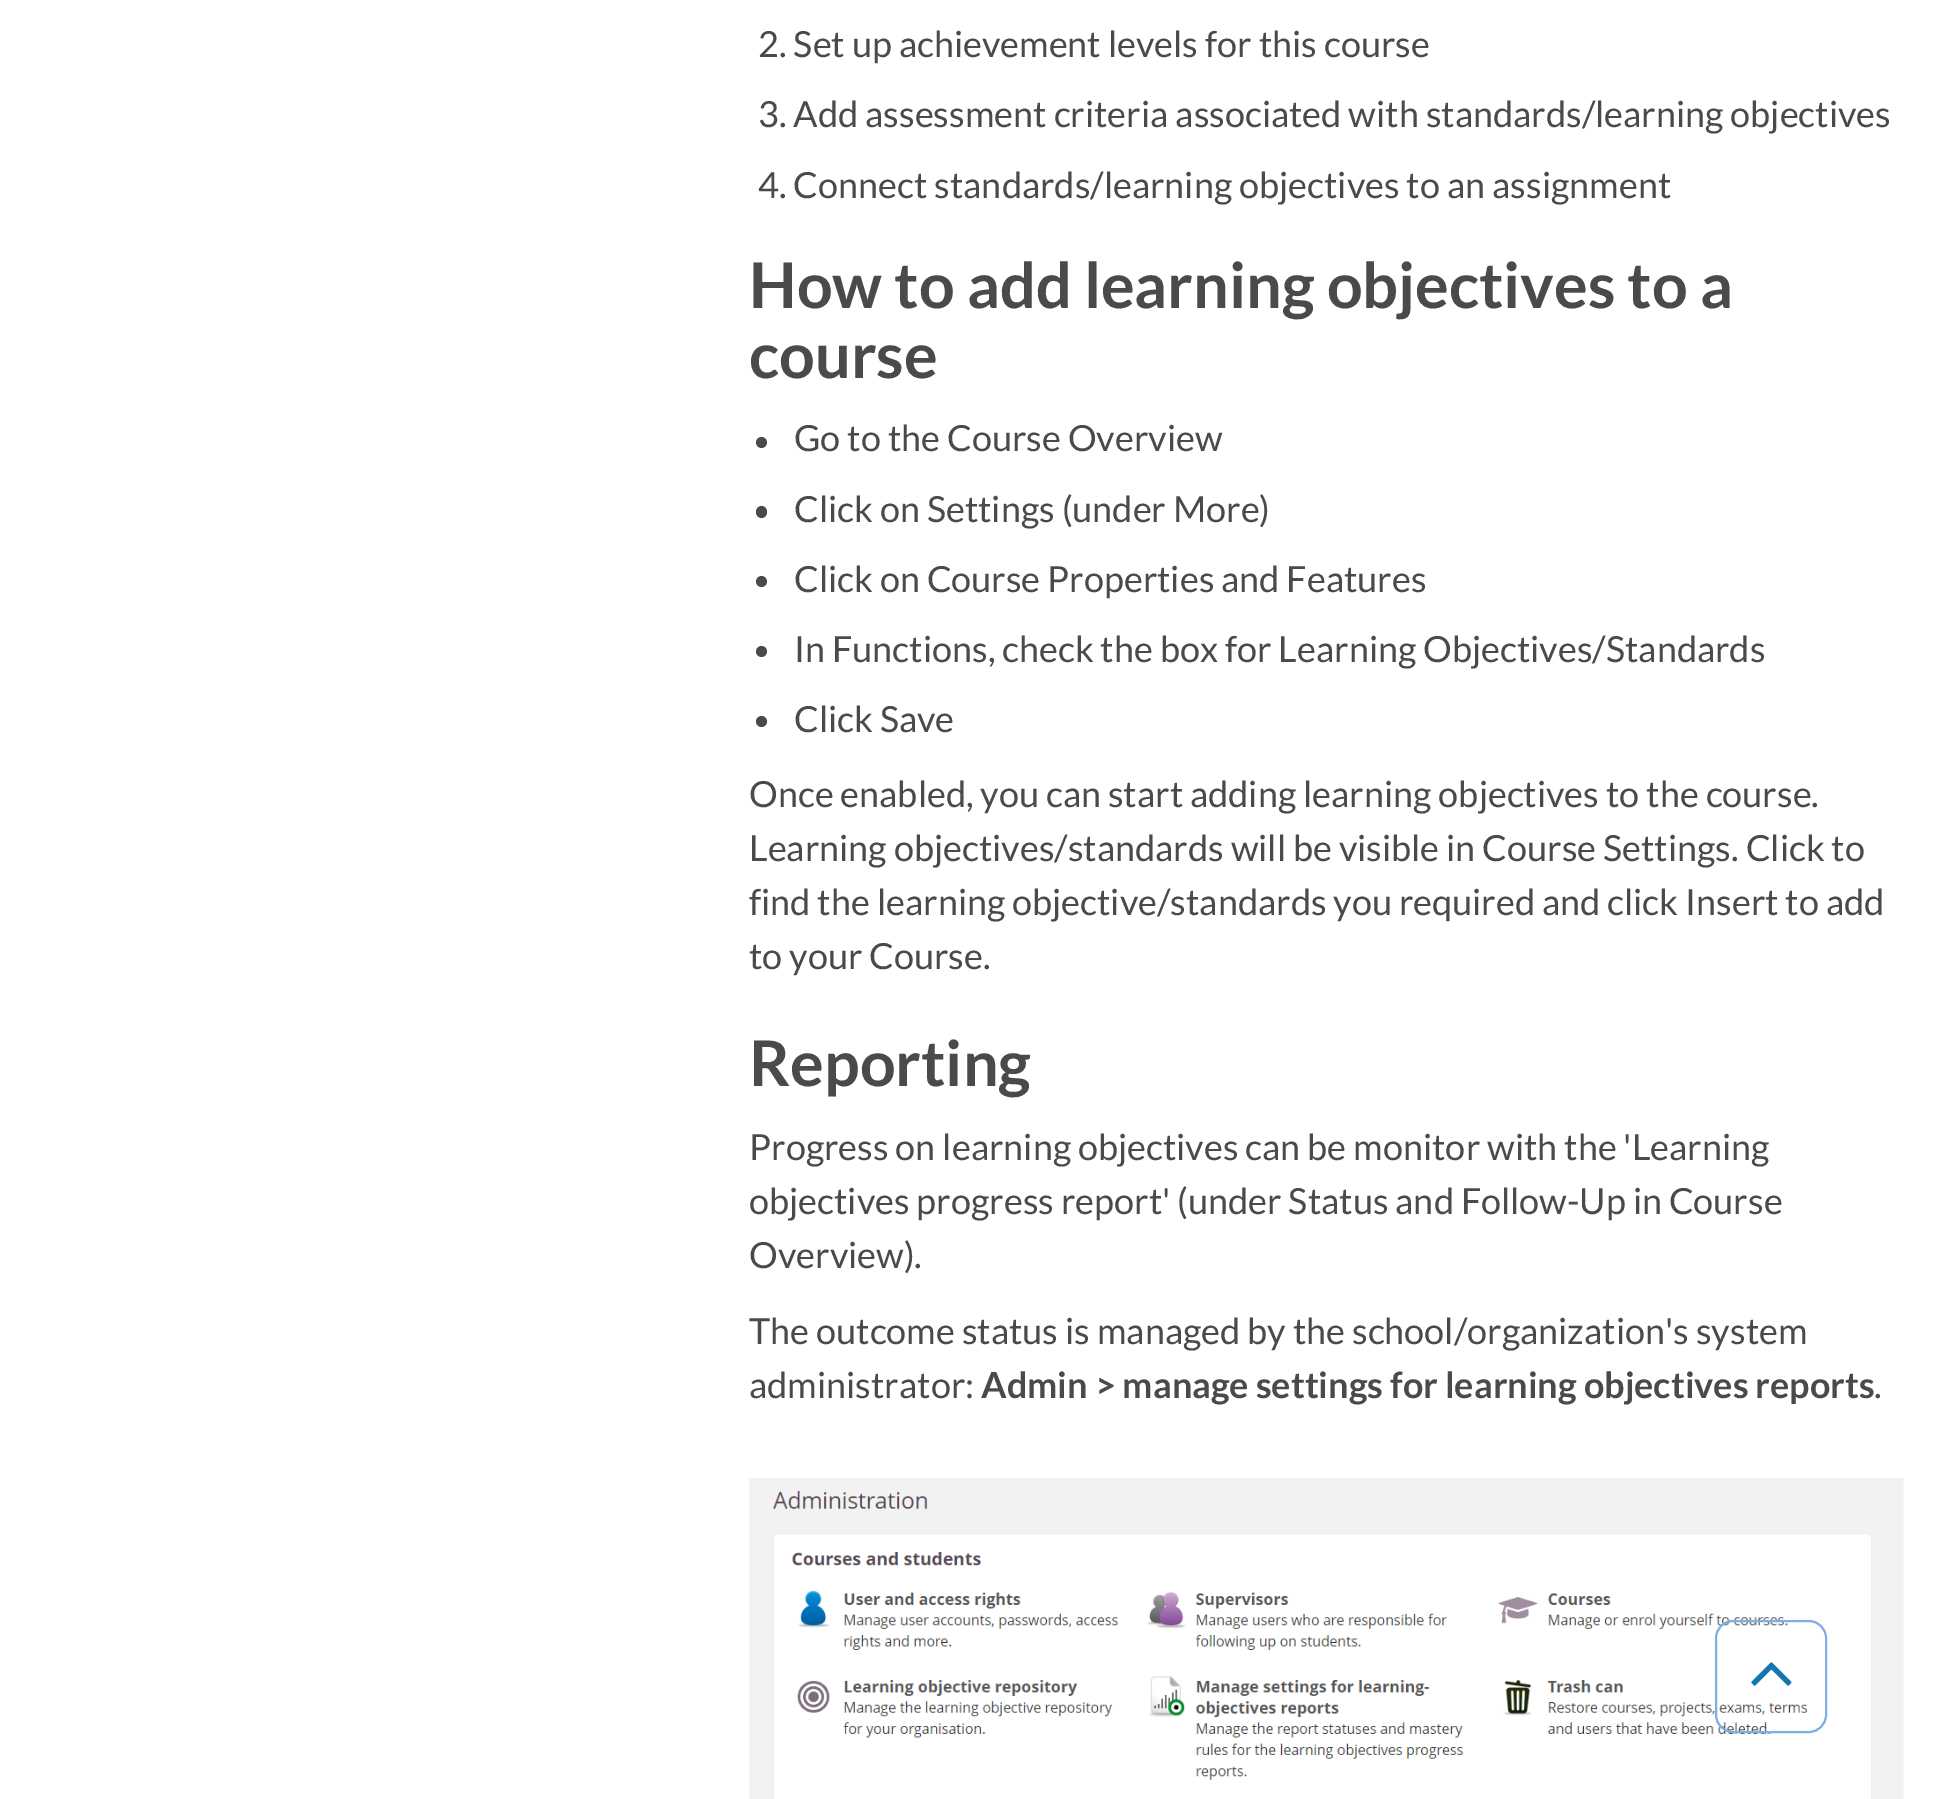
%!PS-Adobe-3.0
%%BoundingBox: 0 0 1939 1799
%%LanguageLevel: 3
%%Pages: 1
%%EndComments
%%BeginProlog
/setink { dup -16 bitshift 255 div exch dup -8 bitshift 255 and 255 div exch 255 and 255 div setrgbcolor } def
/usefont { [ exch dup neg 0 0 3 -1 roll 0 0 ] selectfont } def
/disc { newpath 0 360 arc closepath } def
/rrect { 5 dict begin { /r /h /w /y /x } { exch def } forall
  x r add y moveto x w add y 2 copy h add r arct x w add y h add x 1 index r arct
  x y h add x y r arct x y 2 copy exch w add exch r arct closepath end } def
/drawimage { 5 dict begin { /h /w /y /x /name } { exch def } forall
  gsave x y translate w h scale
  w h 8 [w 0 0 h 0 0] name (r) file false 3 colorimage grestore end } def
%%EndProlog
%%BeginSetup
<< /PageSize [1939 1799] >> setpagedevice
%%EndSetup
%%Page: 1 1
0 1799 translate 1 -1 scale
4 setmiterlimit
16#FFFFFF setink
0 0 1939 1799 rectfill
/Lato-Regular 36 usefont
16#4A4A4B setink
[
    [(2. Set up achievement levels for this course) 758 57]
    [(3. Add assessment criteria associated with standards/learning objectives) 758 127]
    [(4. Connect standards/learning objectives to an assignment) 758 198]
] { aload pop moveto show } forall
/Lato-Bold 63 usefont
749 308 moveto (How to add learning objectives to a) show
749 378 moveto (course) show
761.5 442.5 5.5 disc fill
/Lato-Regular 36 usefont
794 451 moveto (Go to the Course Overview) show
756 506 11 12 5.5 rrect fill
794 522 moveto (Click on Settings \(under More\)) show
761.5 581.5 5.5 disc fill
794 592 moveto (Click on Course Properties and Features) show
761.5 651.5 5.5 disc fill
794 662 moveto (In Functions, check the box for Learning Objectives/Standards) show
761.5 721.5 5.5 disc fill
[
    [(Click Save) 794 732]
    [(Once enabled, you can start adding learning objectives to the course.) 749 807]
    [(Learning objectives/standards will be visible in Course Settings. Click to) 749 861]
    [(find the learning objective/standards you required and click Insert to add) 749 915]
    [(to your Course.) 749 969]
] { aload pop moveto show } forall
/Lato-Bold 63 usefont
749 1086 moveto (Reporting) show
/Lato-Regular 36 usefont
[
    [(Progress on learning objectives can be monitor with the 'Learning) 749 1160]
    [(objectives progress report' \(under Status and Follow-Up in Course) 749 1214]
    [(Overview\).) 749 1268]
    [(The outcome status is managed by the school/organization's system) 749 1344]
    [(administrator:) 749 1398]
] { aload pop moveto show } forall
/Lato-Bold 36 usefont
981 1398 moveto (Admin > manage settings for learning objectives reports) show
/Lato-Regular 36 usefont
1874 1398 moveto (.) show
(img1.raw) 749 1478 1155 321 drawimage
16#7DAFE4 setink
2 setlinewidth
1716 1621 110 111 17 rrect stroke
(img2.raw) 1751 1662 41 24 drawimage
showpage
%%EOF
